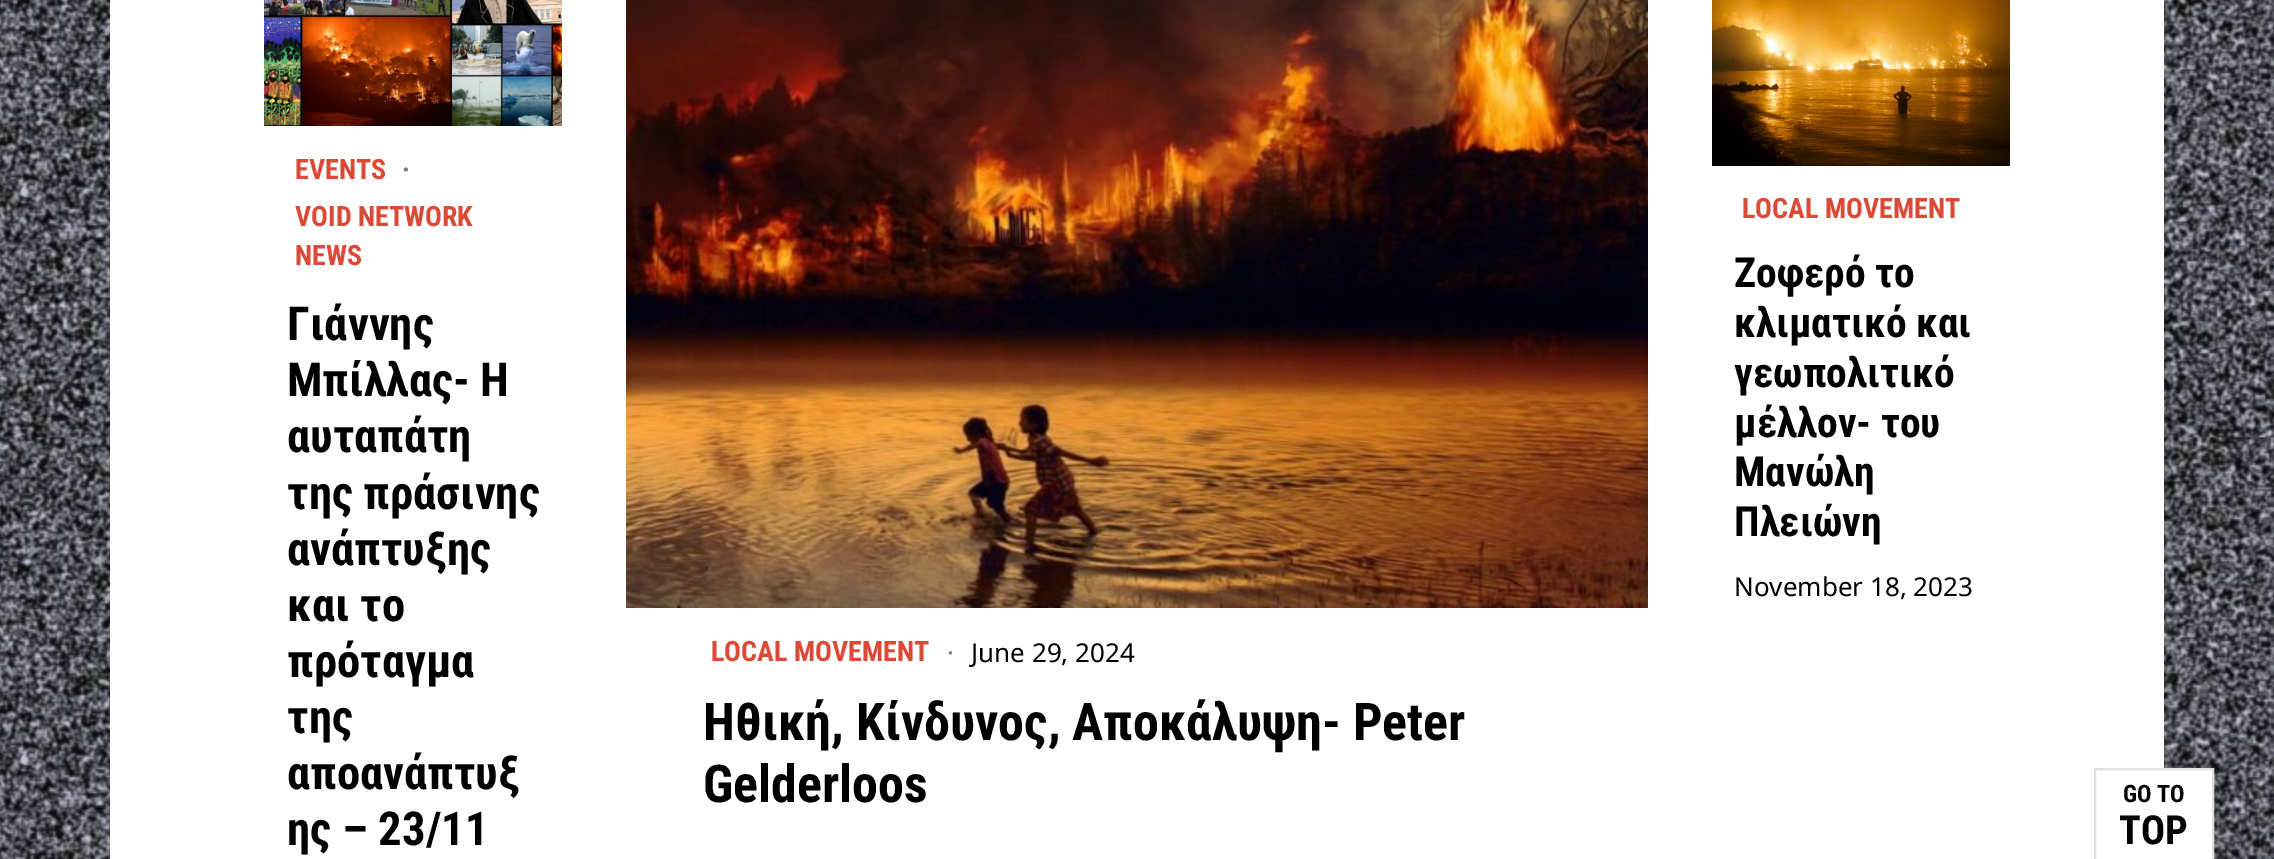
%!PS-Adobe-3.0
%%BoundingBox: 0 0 2274 859
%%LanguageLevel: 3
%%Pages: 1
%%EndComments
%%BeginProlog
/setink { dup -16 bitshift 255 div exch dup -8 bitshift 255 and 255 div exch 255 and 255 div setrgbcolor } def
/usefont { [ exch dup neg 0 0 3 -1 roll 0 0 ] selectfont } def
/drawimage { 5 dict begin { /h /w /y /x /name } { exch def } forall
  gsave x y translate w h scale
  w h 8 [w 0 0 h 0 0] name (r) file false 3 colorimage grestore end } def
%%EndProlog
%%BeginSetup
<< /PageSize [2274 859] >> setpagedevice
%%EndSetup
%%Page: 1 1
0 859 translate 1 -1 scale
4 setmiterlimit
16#FFFFFF setink
0 0 2274 859 rectfill
(img1.raw) 0 0 2274 859 drawimage
110 0 2054 859 rectfill
(img2.raw) 264 0 298 126 drawimage
/RobotoCondensed-Bold 28 usefont
16#DB4A37 setink
295 179 moveto (EVENTS) show
16#808080 setink
402 179 moveto (·) show
16#DB4A37 setink
295 226 moveto (VOID NETWORK) show
295 265 moveto (NEWS) show
/RobotoCondensed-Bold 46.75 usefont
16#000000 setink
[
    [(Γιάννης) 287 340]
    [(Μπίλλας- Η) 287 396]
    [(αυταπάτη) 287 452]
    [(της πράσινης) 287 509]
    [(ανάπτυξης) 287 565]
    [(και το) 287 621]
    [(πρόταγμα) 287 677]
    [(της) 287 733]
    [(αποανάπτυξ) 287 789]
    [(ης – 23/11) 287 845]
] { aload pop moveto show } forall
(img3.raw) 1712 0 298 166 drawimage
/RobotoCondensed-Bold 28 usefont
16#DB4A37 setink
1742 218 moveto (LOCAL MOVEMENT) show
/RobotoCondensed-Bold 41.5 usefont
16#000000 setink
[
    [(Ζοφερό το) 1734 287]
    [(κλιματικό και) 1734 337]
    [(γεωπολιτικό) 1734 387]
    [(μέλλον- του) 1734 437]
    [(Μανώλη) 1734 486]
    [(Πλειώνη) 1734 536]
] { aload pop moveto show } forall
/NotoSans-Regular 26 usefont
1734 596 moveto (November 18, 2023) show
(img4.raw) 626 0 1022 608 drawimage
/RobotoCondensed-Bold 28 usefont
16#DB4A37 setink
711 661 moveto (LOCAL MOVEMENT) show
/NotoSans-Regular 26 usefont
16#808080 setink
947 662 moveto (·) show
16#000000 setink
971 662 moveto (June 29, 2024) show
/RobotoCondensed-Bold 52 usefont
703 740 moveto (Ηθική, Κίνδυνος, Αποκάλυψη- Peter) show
703 802 moveto (Gelderloos) show
16#FFFFFF setink
2164 770 48 89 rectfill
16#E0E0E0 setink
2 setlinewidth
2095 769 118 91 rectstroke
/RobotoCondensed-Bold 24 usefont
16#000000 setink
2123 802 moveto (GO TO) show
/RobotoCondensed-Bold 40 usefont
2119 844 moveto (TOP) show
showpage
%%EOF
